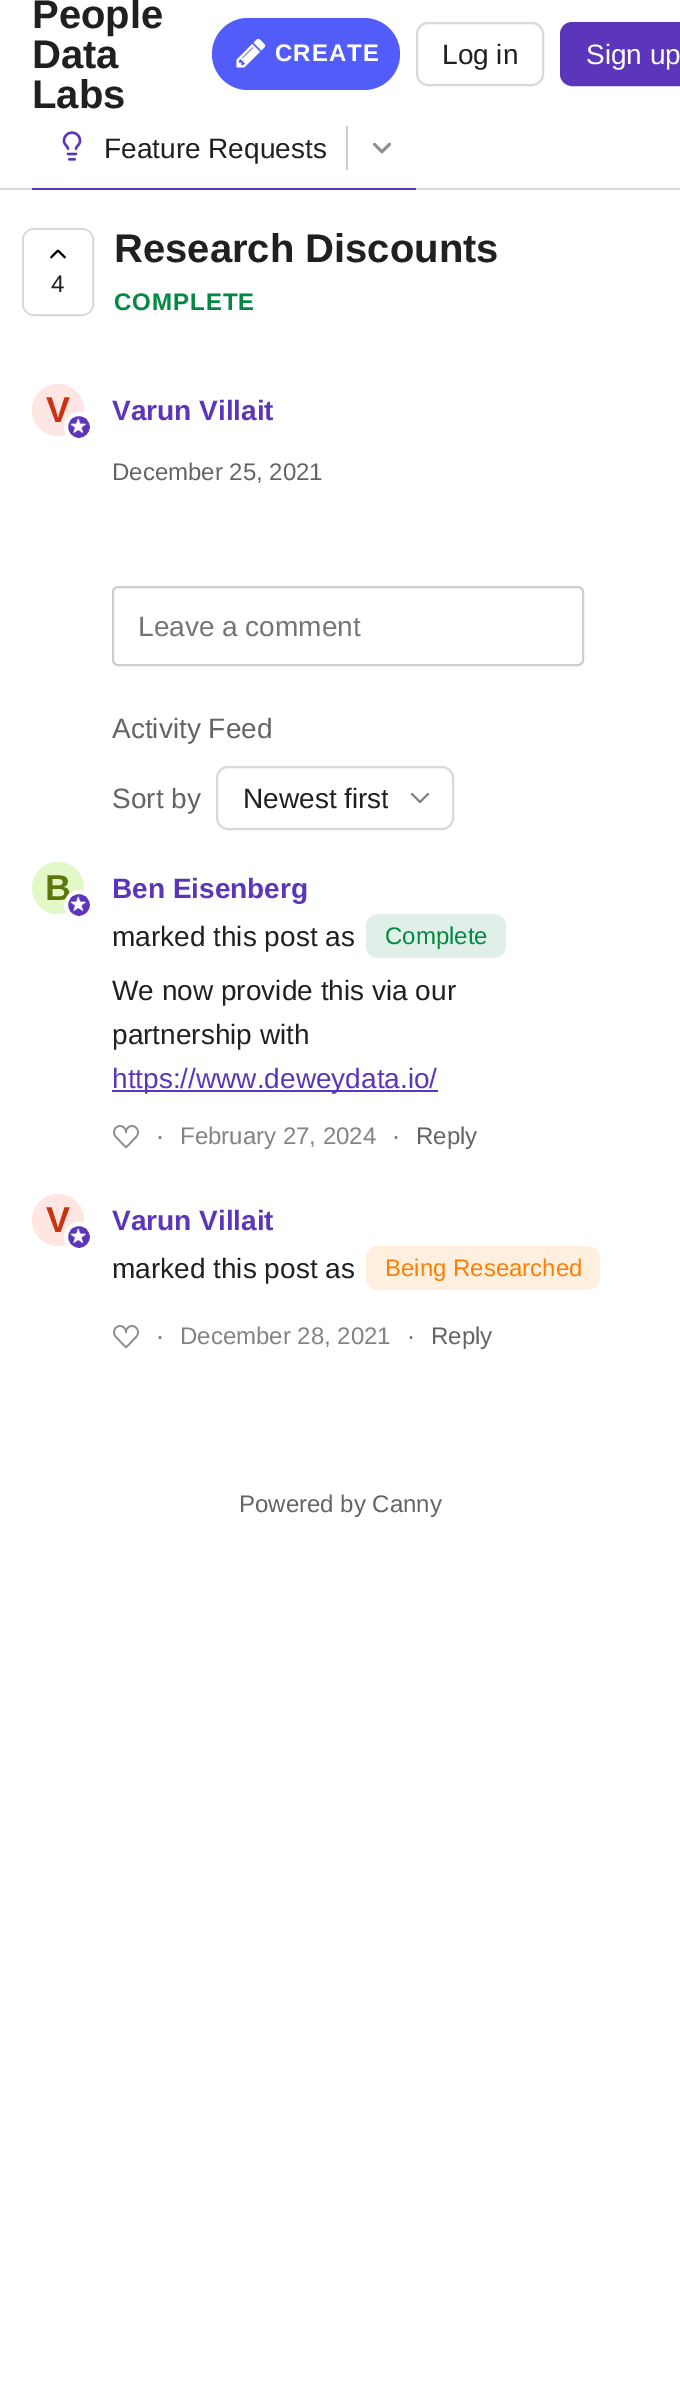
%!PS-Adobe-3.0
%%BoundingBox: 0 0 680 2406
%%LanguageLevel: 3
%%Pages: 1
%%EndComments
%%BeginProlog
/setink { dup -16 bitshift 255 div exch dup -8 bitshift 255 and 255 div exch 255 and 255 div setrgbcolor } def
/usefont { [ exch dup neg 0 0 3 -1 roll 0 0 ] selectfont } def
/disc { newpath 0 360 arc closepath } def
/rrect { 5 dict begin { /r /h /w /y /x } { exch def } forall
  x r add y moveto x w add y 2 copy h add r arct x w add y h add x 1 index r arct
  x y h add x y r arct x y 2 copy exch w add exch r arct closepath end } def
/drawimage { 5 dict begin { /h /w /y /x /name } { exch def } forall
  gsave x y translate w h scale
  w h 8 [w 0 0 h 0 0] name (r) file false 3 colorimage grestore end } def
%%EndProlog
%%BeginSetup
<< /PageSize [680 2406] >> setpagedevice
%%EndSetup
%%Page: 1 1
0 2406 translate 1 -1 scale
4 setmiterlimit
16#FFFFFF setink
0 0 680 2406 rectfill
16#D9D9D9 setink
0 188 680 2 rectfill
/LiberationSans-Bold 40 usefont
16#202020 setink
[
    [(People) 32 28]
    [(Data) 32 68]
    [(Labs) 32 108]
] { aload pop moveto show } forall
16#525DF9 setink
212 18 188 72 36 rrect fill
(img1.raw) 236 38 30 30 drawimage
/LiberationSans-Bold 24 usefont
16#FFFFFF setink
275 61 moveto 1 0 (CREATE) ashow
16#D9D9D9 setink
2 setlinewidth
417 23 126 62 11 rrect stroke
/LiberationSans-Regular 28 usefont
16#202020 setink
442 64 moveto (Log in) show
16#5C36BA setink
561 23 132 62 11 rrect gsave fill grestore
stroke
16#FFFFFF setink
586 64 moveto (Sign up) show
16#5C36BA setink
32 188 384 2 rectfill
(img2.raw) 62 131 20 30 drawimage
16#CECECE setink
346 126 2 44 rectfill
16#202020 setink
104 158 moveto (Feature Requests) show
(img3.raw) 373 142 18 12 drawimage
16#D9D9D9 setink
23 229 70 86 11 rrect stroke
16#FFFFFF setink
24 230 68 84 10 rrect fill
16#000000 setink
1.8 setlinewidth
1 setlinecap
1 setlinejoin
65 257.5 moveto 58 250.5 lineto 51 257.5 lineto stroke
/LiberationSans-Regular 24 usefont
16#202020 setink
51 292 moveto (4) show
/LiberationSans-Bold 40 usefont
114 262 moveto (Research Discounts) show
/LiberationSans-Bold 24 usefont
16#048944 setink
114 310 moveto 1 0 (COMPLETE) ashow
16#FFE6E2 setink
58 410 26 disc fill
/LiberationSans-Bold 36 usefont
16#CA3214 setink
46 422 moveto (V) show
16#5C36BA setink
79 427 13 disc gsave fill grestore
16#FFFFFF setink
4 setlinewidth
0 setlinecap
0 setlinejoin
stroke
(img4.raw) 70 418 17 16 drawimage
/LiberationSans-Bold 28 usefont
16#5C36BA setink
112 420 moveto (Varun Villait) show
/LiberationSans-Regular 24 usefont
16#646464 setink
112 480 moveto (December 25, 2021) show
16#CECECE setink
2 setlinewidth
113 587 470 78 5 rrect stroke
/LiberationSans-Regular 28 usefont
16#757575 setink
138 636 moveto (Leave a comment) show
16#646464 setink
112 738 moveto (Activity Feed) show
112 808 moveto (Sort by) show
16#D9D9D9 setink
217 767 236 62 11 rrect stroke
gsave
242 776 146 44 rectclip
16#202020 setink
243 808 moveto (Newest first) show
grestore
16#838383 setink
1 setlinecap
1 setlinejoin
412 794 moveto 420 802 lineto 428 794 lineto stroke
16#E4F7C7 setink
58 888 26 disc fill
/LiberationSans-Bold 36 usefont
16#5D770D setink
45 900 moveto (B) show
16#5C36BA setink
79 905 13 disc gsave fill grestore
16#FFFFFF setink
4 setlinewidth
0 setlinecap
0 setlinejoin
stroke
(img4.raw) 70 896 17 16 drawimage
/LiberationSans-Bold 28 usefont
16#5C36BA setink
112 898 moveto (Ben Eisenberg) show
/LiberationSans-Regular 28 usefont
16#202020 setink
112 946 moveto (marked this post as) show
16#E0F0E8 setink
366 914 140 44 12 rrect fill
/LiberationSans-Regular 24 usefont
16#048944 setink
385 944 moveto (Complete) show
/LiberationSans-Regular 28 usefont
16#202020 setink
112 1000 moveto (We now provide this via our) show
112 1044 moveto (partnership with) show
16#5C36BA setink
112 1090 326 2 rectfill
112 1088 moveto (https://www.deweydata.io/) show
(img5.raw) 113 1125 26 24 drawimage
/LiberationSans-Regular 24 usefont
16#646464 setink
156 1144 moveto (·) show
16#838383 setink
180 1144 moveto (February 27, 2024) show
16#646464 setink
392 1144 moveto (·) show
416 1144 moveto (Reply) show
16#FFE6E2 setink
58 1220 26 disc fill
/LiberationSans-Bold 36 usefont
16#CA3214 setink
46 1232 moveto (V) show
16#5C36BA setink
79 1237 13 disc gsave fill grestore
16#FFFFFF setink
stroke
(img4.raw) 70 1228 17 16 drawimage
/LiberationSans-Bold 28 usefont
16#5C36BA setink
112 1230 moveto (Varun Villait) show
/LiberationSans-Regular 28 usefont
16#202020 setink
112 1278 moveto (marked this post as) show
16#FFEFDF setink
366 1246 234 44 12 rrect fill
/LiberationSans-Regular 24 usefont
16#FD7F00 setink
385 1276 moveto (Being Researched) show
(img5.raw) 113 1325 26 24 drawimage
16#646464 setink
156 1344 moveto (·) show
16#838383 setink
180 1344 moveto (December 28, 2021) show
16#646464 setink
[
    [(·) 407 1344]
    [(Reply) 431 1344]
    [(Powered by Canny) 239 1512]
] { aload pop moveto show } forall
showpage
%%EOF
